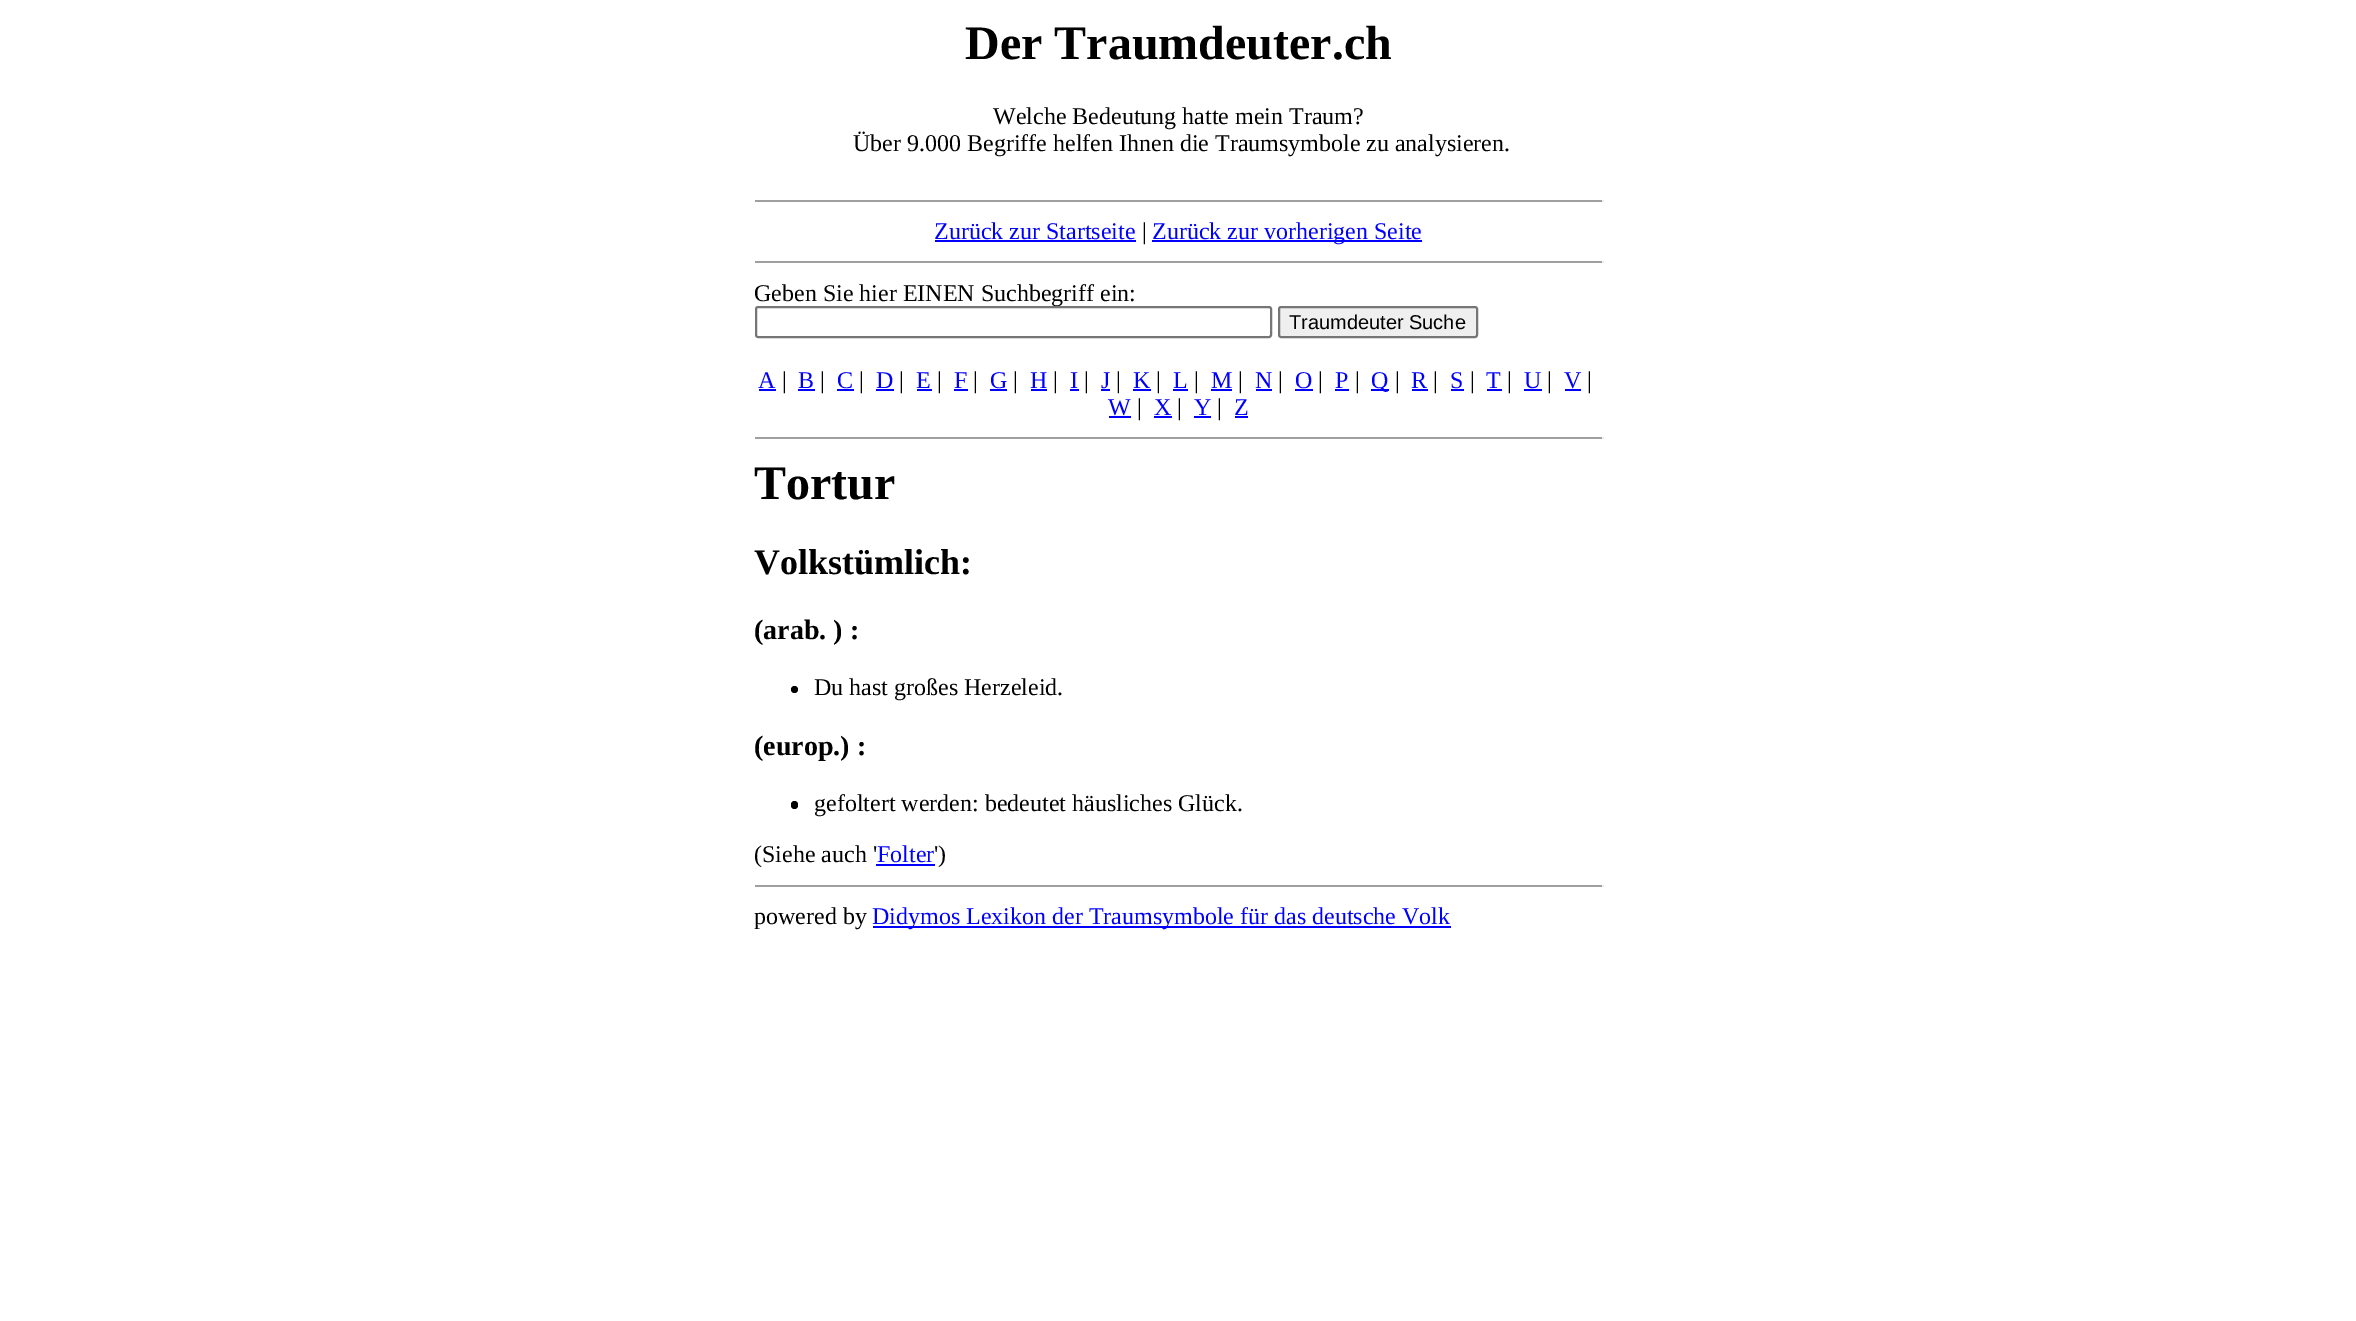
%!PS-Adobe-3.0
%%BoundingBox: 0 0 2356 1321
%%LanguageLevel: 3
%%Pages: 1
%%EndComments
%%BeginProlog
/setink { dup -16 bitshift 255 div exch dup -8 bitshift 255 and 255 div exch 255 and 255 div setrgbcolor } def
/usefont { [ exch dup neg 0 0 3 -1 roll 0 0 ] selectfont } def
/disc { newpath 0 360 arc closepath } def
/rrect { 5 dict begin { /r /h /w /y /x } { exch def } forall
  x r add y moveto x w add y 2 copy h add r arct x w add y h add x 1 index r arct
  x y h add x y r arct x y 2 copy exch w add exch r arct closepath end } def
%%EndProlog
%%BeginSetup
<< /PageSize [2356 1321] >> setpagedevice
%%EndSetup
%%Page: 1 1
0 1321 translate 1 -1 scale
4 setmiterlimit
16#FFFFFF setink
0 0 2356 1321 rectfill
/LiberationSerif-Bold 48 usefont
16#000000 setink
965 59 moveto (Der Traumdeuter.ch) show
/LiberationSerif-Regular 24 usefont
993 124 moveto (Welche Bedeutung hatte mein Traum?) show
853 151 moveto (Über 9.000 Begriffe helfen Ihnen die Traumsymbole zu analysieren.) show
16#9F9F9F setink
755 200 849 2 rectfill
16#EEEEEE setink
1602 200 2 2 rectfill
16#0000FF setink
934 239 moveto (Zurück zur Startseite) show
935 240 201 2 rectfill
16#000000 setink
1142 239 moveto (|) show
16#0000FF setink
1152 240 270 2 rectfill
1152 239 moveto (Zurück zur vorherigen Seite) show
16#9F9F9F setink
755 261 849 2 rectfill
16#EEEEEE setink
1602 261 2 2 rectfill
16#000000 setink
754 301 moveto (Geben Sie hier EINEN Suchbegriff ein:) show
16#FFFFFF setink
756 307 515 30 2 rrect gsave fill grestore
16#767676 setink
2 setlinewidth
stroke
16#EFEFEF setink
1279 307 198 30 2 rrect gsave fill grestore
16#767676 setink
stroke
/LiberationSans-Regular 20 usefont
16#000000 setink
1289 329 moveto (Traumdeuter Suche) show
/LiberationSerif-Regular 24 usefont
16#0000FF setink
758 388 moveto (A) show
759 389 17 2 rectfill
16#000000 setink
782 388 moveto (|) show
16#0000FF setink
798 388 moveto (B) show
798 389 17 2 rectfill
16#000000 setink
820 388 moveto (|) show
16#0000FF setink
837 388 moveto (C) show
837 389 17 2 rectfill
16#000000 setink
859 388 moveto (|) show
16#0000FF setink
876 388 moveto (D) show
876 389 18 2 rectfill
16#000000 setink
899 388 moveto (|) show
16#0000FF setink
916 388 moveto (E) show
917 389 15 2 rectfill
16#000000 setink
937 388 moveto (|) show
16#0000FF setink
954 388 moveto (F) show
954 389 14 2 rectfill
16#000000 setink
973 388 moveto (|) show
16#0000FF setink
990 388 moveto (G) show
990 389 17 2 rectfill
16#000000 setink
1013 388 moveto (|) show
16#0000FF setink
1030 388 moveto (H) show
1031 389 16 2 rectfill
16#000000 setink
1053 388 moveto (|) show
16#0000FF setink
1070 388 moveto (I) show
1070 389 9 2 rectfill
16#000000 setink
1084 388 moveto (|) show
16#0000FF setink
1101 388 moveto (J) show
1101 389 9 2 rectfill
16#000000 setink
1116 388 moveto (|) show
16#0000FF setink
1133 388 moveto (K) show
1133 389 18 2 rectfill
16#000000 setink
1156 388 moveto (|) show
16#0000FF setink
1173 388 moveto (L) show
1173 389 15 2 rectfill
16#000000 setink
1194 388 moveto (|) show
16#0000FF setink
1211 388 moveto (M) show
1211 389 21 2 rectfill
16#000000 setink
1238 388 moveto (|) show
16#0000FF setink
1255 388 moveto (N) show
1256 389 16 2 rectfill
16#000000 setink
1278 388 moveto (|) show
16#0000FF setink
1295 388 moveto (O) show
1295 389 18 2 rectfill
16#000000 setink
1318 388 moveto (|) show
16#0000FF setink
1335 388 moveto (P) show
1335 389 14 2 rectfill
16#000000 setink
1355 388 moveto (|) show
16#0000FF setink
1371 389 18 2 rectfill
1371 388 moveto (Q) show
16#000000 setink
1395 388 moveto (|) show
16#0000FF setink
1411 388 moveto (R) show
1412 389 16 2 rectfill
16#000000 setink
1433 388 moveto (|) show
16#0000FF setink
1450 388 moveto (S) show
1451 389 13 2 rectfill
16#000000 setink
1470 388 moveto (|) show
16#0000FF setink
1486 388 moveto (T) show
1487 389 15 2 rectfill
16#000000 setink
1507 388 moveto (|) show
16#0000FF setink
1524 388 moveto (U) show
1524 389 18 2 rectfill
16#000000 setink
1547 388 moveto (|) show
16#0000FF setink
1564 388 moveto (V) show
1565 389 16 2 rectfill
16#000000 setink
1587 388 moveto (|) show
16#0000FF setink
1108 415 moveto (W) show
1109 416 22 2 rectfill
16#000000 setink
1137 415 moveto (|) show
16#0000FF setink
1154 415 moveto (X) show
1154 416 18 2 rectfill
16#000000 setink
1177 415 moveto (|) show
16#0000FF setink
1194 415 moveto (Y) show
1194 416 17 2 rectfill
16#000000 setink
1217 415 moveto (|) show
16#0000FF setink
1234 415 moveto (Z) show
[
    [1235 416 13 2 16#0000FF]
    [755 437 849 2 16#9F9F9F]
    [1602 437 2 2 16#EEEEEE]
] { aload pop setink rectfill } forall
/LiberationSerif-Bold 48 usefont
16#000000 setink
754 499 moveto (Tortur) show
/LiberationSerif-Bold 36 usefont
754 574 moveto (Volkstümlich:) show
/LiberationSerif-Bold 28 usefont
754 639 moveto (\(arab. \) :) show
794.5 689.5 3.5 disc fill
/LiberationSerif-Regular 24 usefont
814 695 moveto (Du hast großes Herzeleid.) show
/LiberationSerif-Bold 28 usefont
754 755 moveto (\(europ.\) :) show
791 801 7 8 3.5 rrect fill
/LiberationSerif-Regular 24 usefont
814 811 moveto (gefoltert werden: bedeutet häusliches Glück.) show
754 862 moveto (\(Siehe auch ') show
16#0000FF setink
877 862 moveto (Folter) show
876 864 59 2 rectfill
16#000000 setink
934 862 moveto ('\)) show
16#9F9F9F setink
755 885 849 2 rectfill
16#EEEEEE setink
1602 885 2 2 rectfill
16#000000 setink
754 924 moveto (powered by) show
16#0000FF setink
873 926 578 2 rectfill
872 924 moveto (Didymos Lexikon der Traumsymbole für das deutsche Volk) show
showpage
%%EOF
